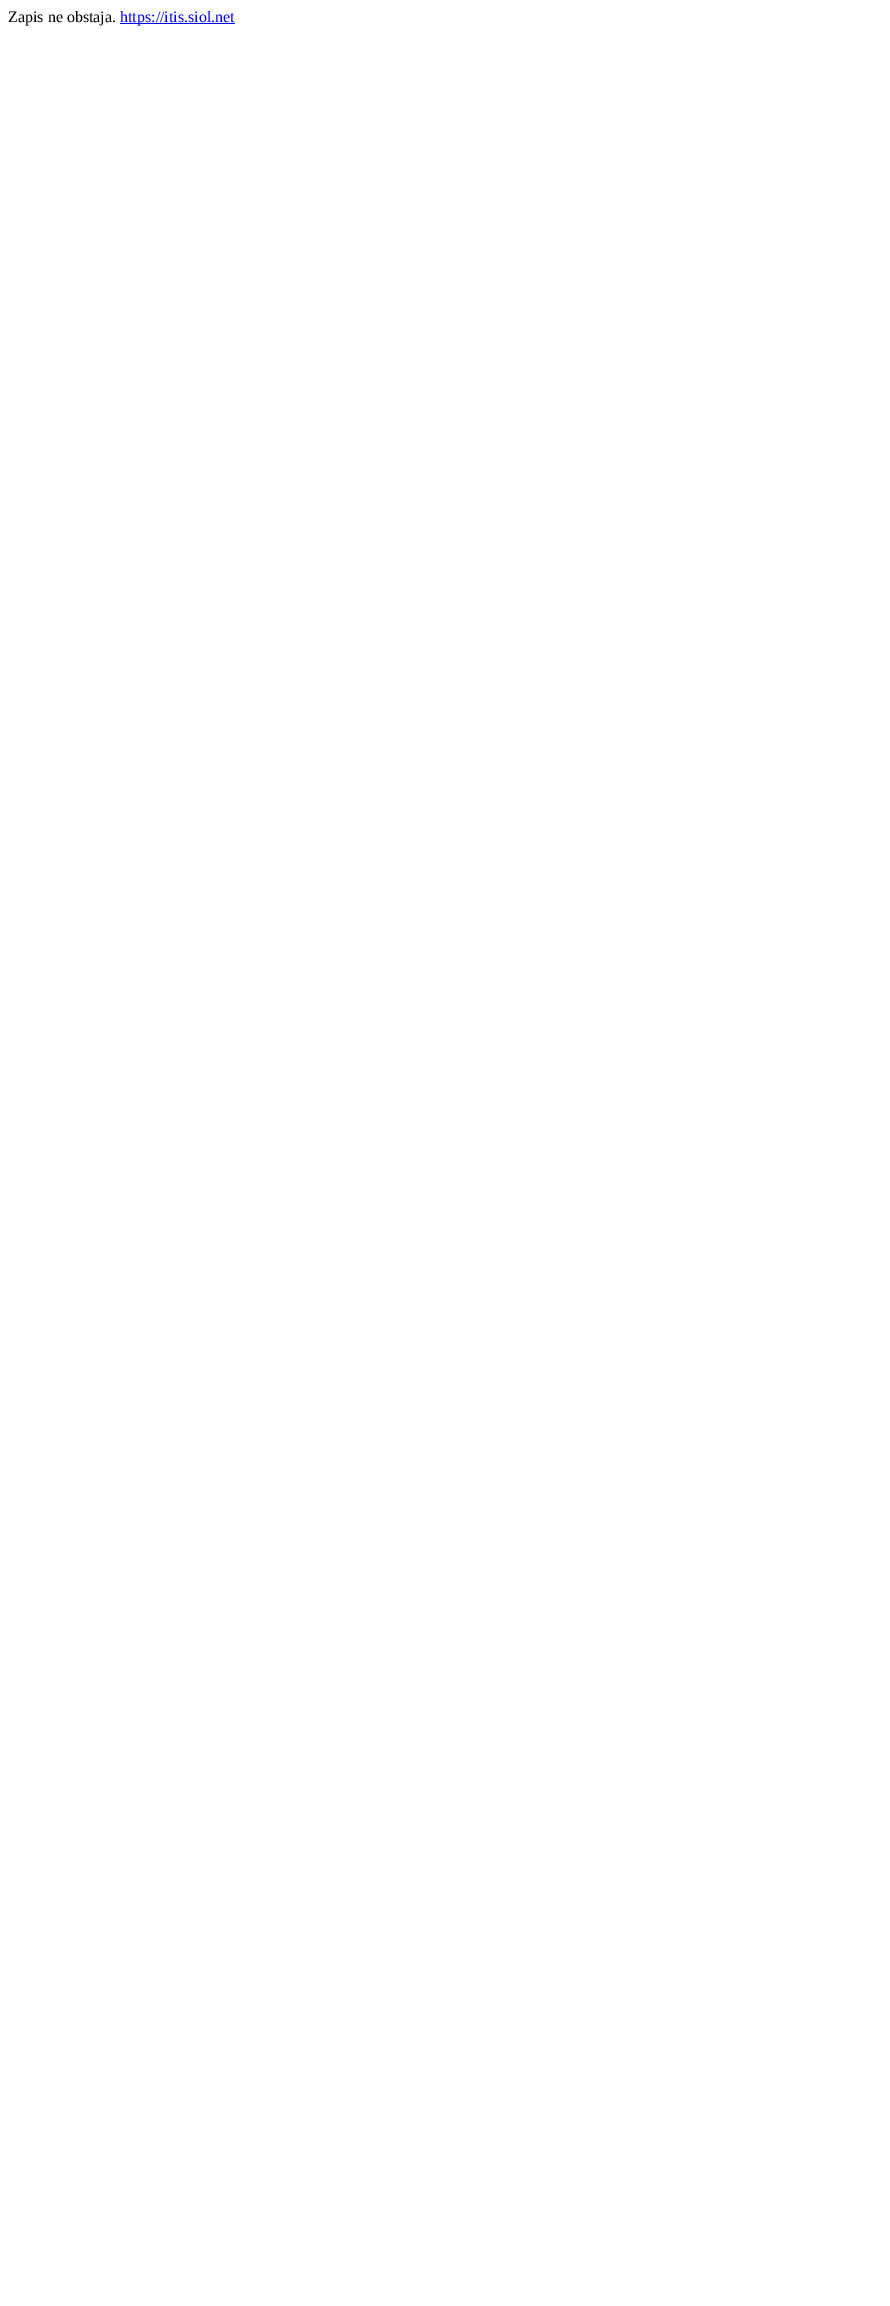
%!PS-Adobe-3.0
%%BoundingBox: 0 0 890 2306
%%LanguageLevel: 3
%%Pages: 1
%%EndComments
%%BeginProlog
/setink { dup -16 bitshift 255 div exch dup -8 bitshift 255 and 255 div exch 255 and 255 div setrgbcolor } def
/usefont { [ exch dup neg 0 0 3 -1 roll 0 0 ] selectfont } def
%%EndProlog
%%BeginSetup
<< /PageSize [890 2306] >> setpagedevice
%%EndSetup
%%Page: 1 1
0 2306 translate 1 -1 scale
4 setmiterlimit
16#FFFFFF setink
0 0 890 2306 rectfill
/LiberationSerif-Regular 16 usefont
16#000000 setink
8 22 moveto (Zapis ne obstaja.) show
16#0000EE setink
120 23 115 1 rectfill
120 22 moveto (https://itis.siol.net) show
showpage
%%EOF
